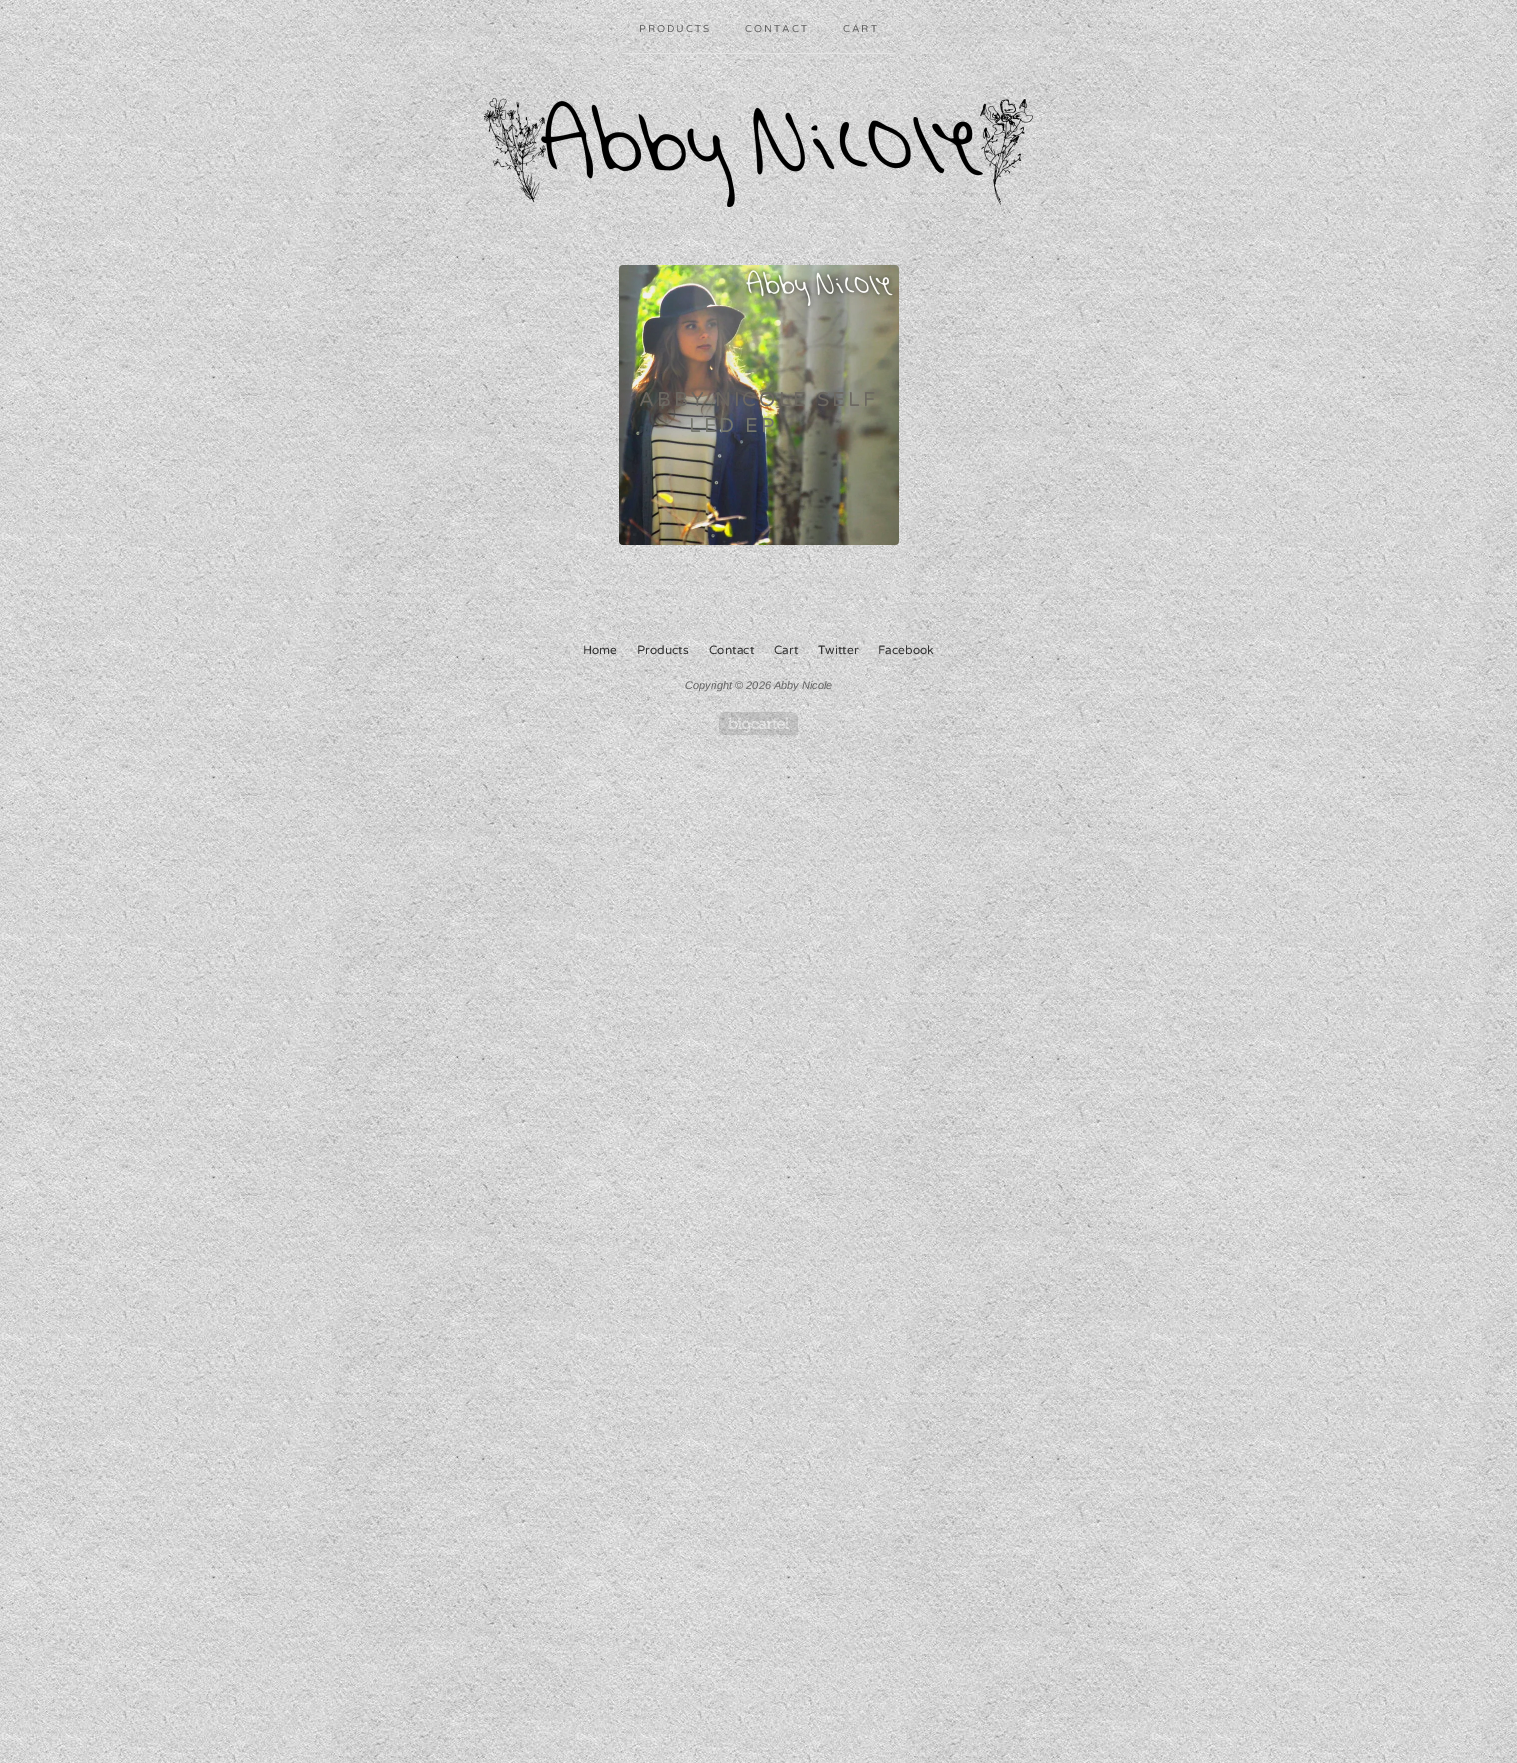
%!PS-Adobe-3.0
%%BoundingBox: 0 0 1517 1763
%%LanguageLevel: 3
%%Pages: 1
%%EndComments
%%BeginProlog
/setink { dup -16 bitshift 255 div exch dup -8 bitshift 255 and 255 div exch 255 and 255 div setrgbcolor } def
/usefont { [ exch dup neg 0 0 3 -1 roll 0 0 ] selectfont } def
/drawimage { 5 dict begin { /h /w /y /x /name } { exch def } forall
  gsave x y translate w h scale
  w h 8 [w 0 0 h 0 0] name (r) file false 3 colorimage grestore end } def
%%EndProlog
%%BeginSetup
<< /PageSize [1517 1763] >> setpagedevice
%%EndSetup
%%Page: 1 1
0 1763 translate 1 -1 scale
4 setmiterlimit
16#FFFFFF setink
0 0 1517 1763 rectfill
(img1.raw) 0 0 1517 1763 drawimage
16#E5E5E5 setink
622 53 273 1 rectfill
/VarelaRound-Regular 10 usefont
16#616161 setink
639 32 moveto 2 0 (PRODUCTS) ashow
745 32 moveto 2 0 (CONTACT) ashow
843 32 moveto 2 0 (CART) ashow
(img2.raw) 484 98 549 109 drawimage
(img3.raw) 619 265 280 280 drawimage
/VarelaRound-Regular 20 usefont
16#6C6861 setink
639 406 moveto 3 0 (ABBY NICOLE SELF) ashow
16#75776D setink
689 432 moveto 3 0 (LED EP) ashow
/VarelaRound-Regular 12 usefont
16#333333 setink
[
    [(Home) 583 654]
    [(Products) 637 654]
    [(Contact) 709 654]
    [(Cart) 774 654]
    [(Twitter) 818 654]
    [(Facebook) 878 654]
] { aload pop moveto show } forall
/LiberationSans-Italic 11 usefont
16#616161 setink
685 689 moveto (Copyright © 2026 Abby Nicole) show
(img4.raw) 719 712 79 23 drawimage
showpage
%%EOF
